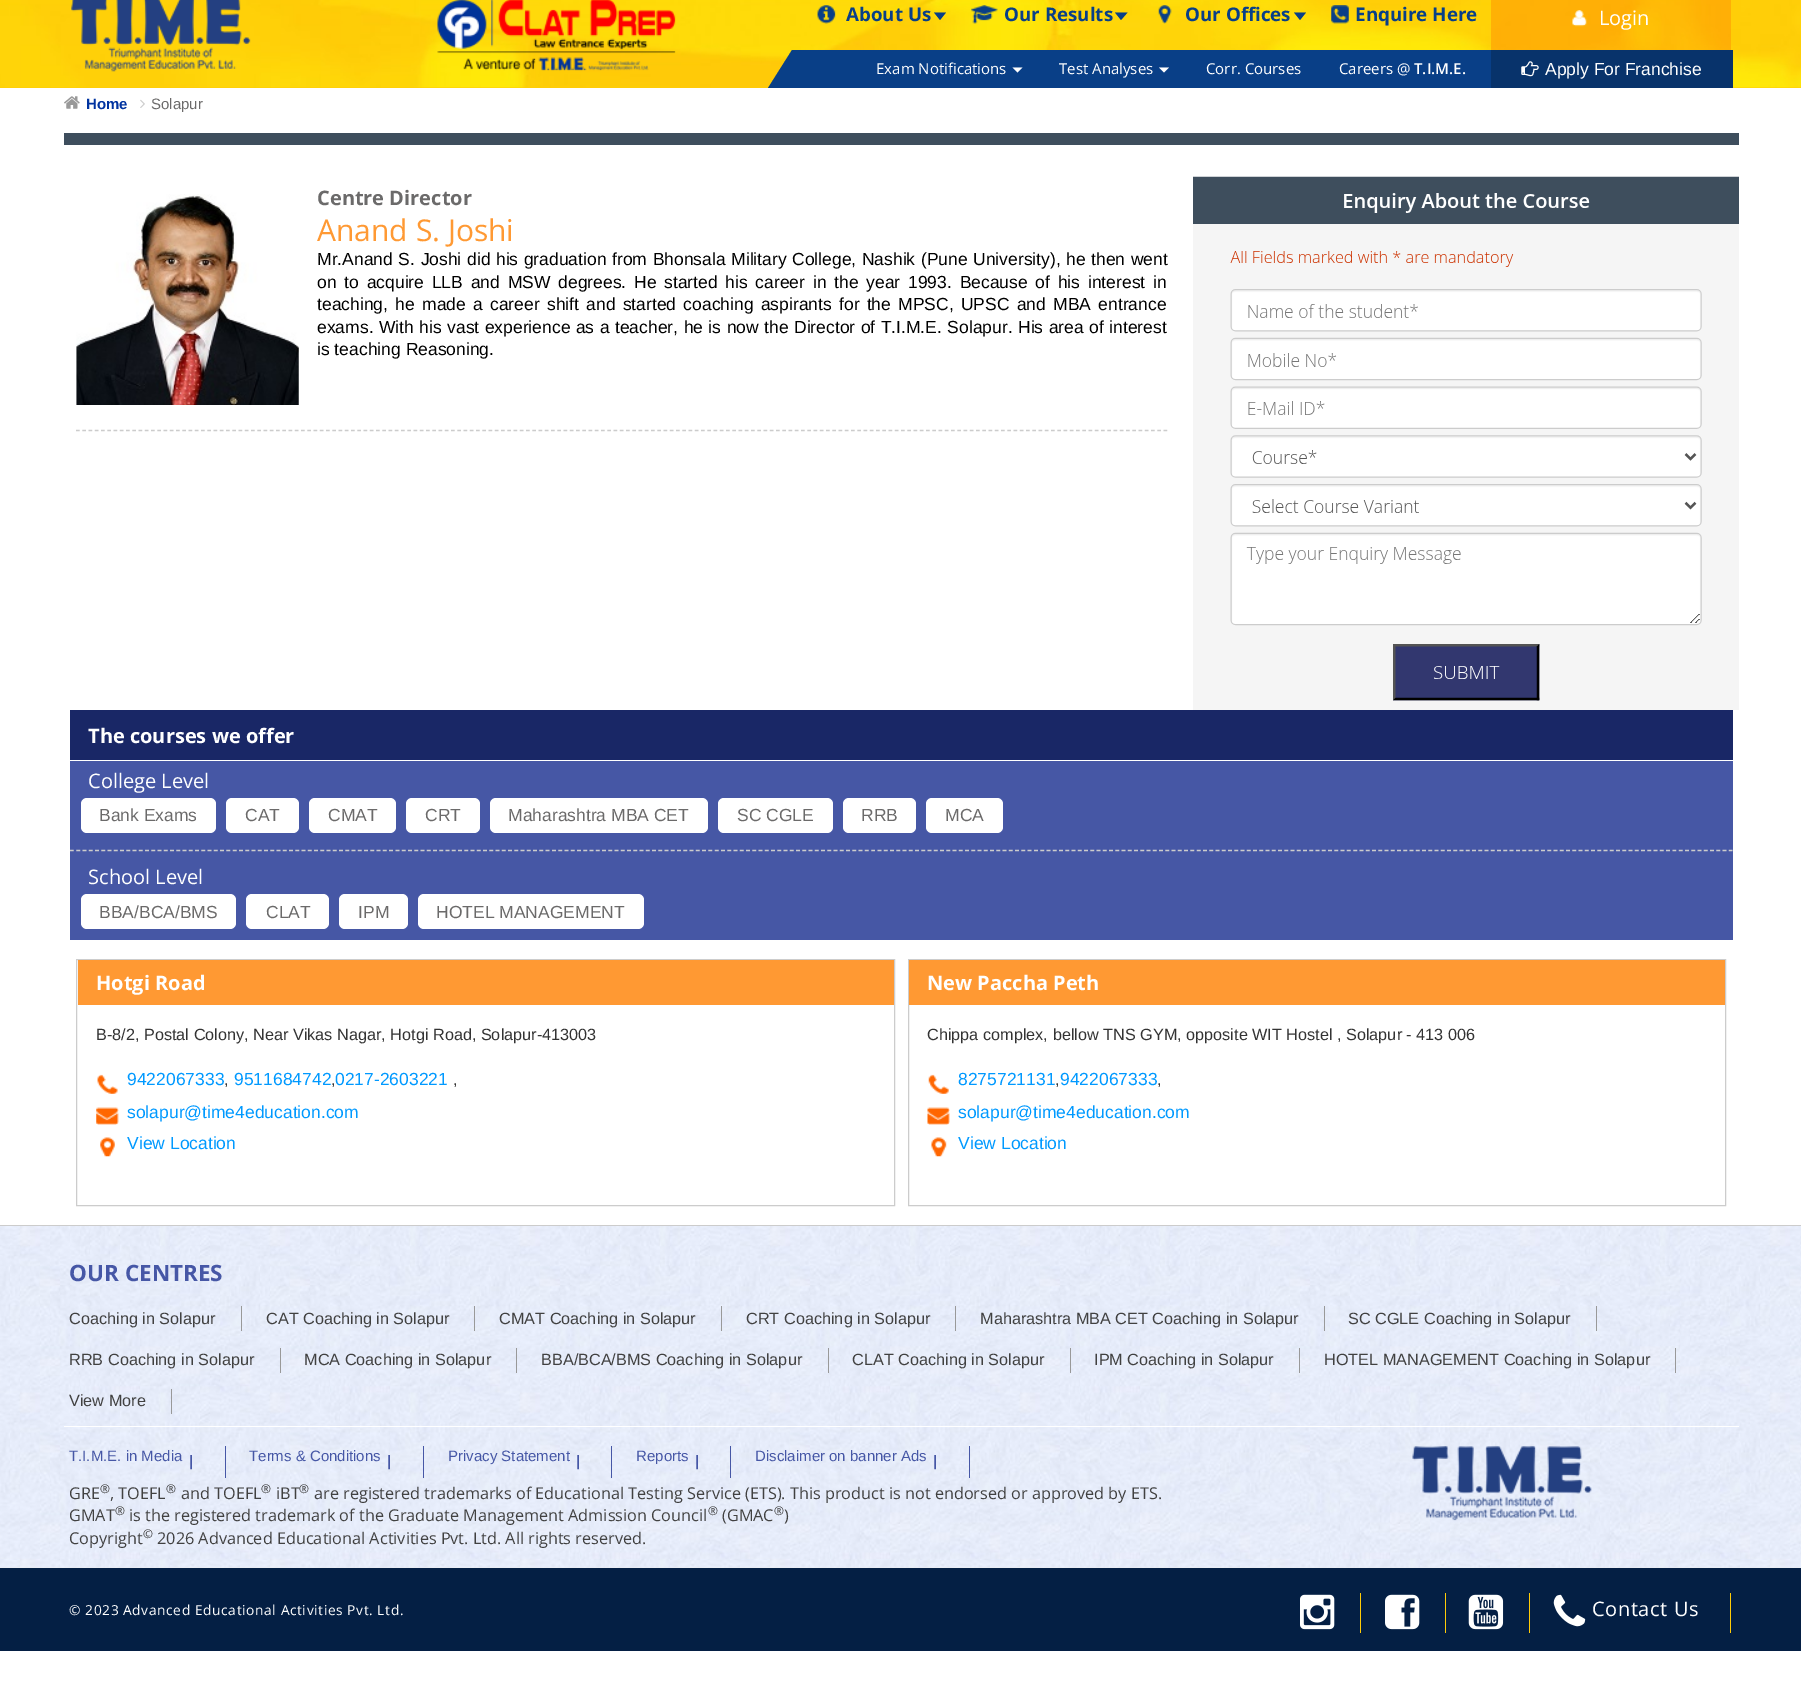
%!PS-Adobe-3.0
%%BoundingBox: 0 0 1801 1692
%%LanguageLevel: 3
%%Pages: 1
%%EndComments
%%BeginProlog
/setink { dup -16 bitshift 255 div exch dup -8 bitshift 255 and 255 div exch 255 and 255 div setrgbcolor } def
/usefont { [ exch dup neg 0 0 3 -1 roll 0 0 ] selectfont } def
/setalpha { dup .setfillconstantalpha .setstrokeconstantalpha } def
/rrect { 5 dict begin { /r /h /w /y /x } { exch def } forall
  x r add y moveto x w add y 2 copy h add r arct x w add y h add x 1 index r arct
  x y h add x y r arct x y 2 copy exch w add exch r arct closepath end } def
/drawimage { 5 dict begin { /h /w /y /x /name } { exch def } forall
  gsave x y translate w h scale
  w h 8 [w 0 0 h 0 0] name (r) file false 3 colorimage grestore end } def
%%EndProlog
%%BeginSetup
<< /PageSize [1801 1692] /PageUsesTransparency true >> setpagedevice
%%EndSetup
%%Page: 1 1
0 .pushpdf14devicefilter
0 1692 translate 1 -1 scale
4 setmiterlimit
16#FFFFFF setink
0 0 1801 1692 rectfill
16#FFCB08 setink
0 87 1801 1 rectfill
(img1.raw) 0 0 1801 88 drawimage
(img2.raw) 71 0 180 72 drawimage
(img3.raw) 437 0 239 71 drawimage
(img4.raw) 817 5 19 19 drawimage
/OpenSans-Bold 18.75 usefont
16#083F88 setink
846 21 moveto (About Us) show
934 12.5 moveto 946 12.5 lineto 940 20 lineto closepath fill
(img5.raw) 971 5 27 19 drawimage
1004 21 moveto (Our Results) show
1115 12.5 moveto 1127.5 12.5 lineto 1121 20 lineto closepath fill
(img6.raw) 1158 5 14 19 drawimage
1185 21 moveto (Our Offices) show
1294 12.5 moveto 1306 12.5 lineto 1300 20 lineto closepath fill
(img7.raw) 1331 5 18 19 drawimage
1355 21 moveto (Enquire Here) show
0.3 setalpha
16#FF6600 setink
1491 0 240 50 rectfill
1 setalpha
(img8.raw) 1572 10 15 17 drawimage
/OpenSans-Regular 20 usefont
16#FFFFFF setink
1599 25 moveto (Login) show
16#093F87 setink
1732 88 moveto 768 88 lineto 792 50 lineto 1732 50 lineto closepath fill
/OpenSans-Regular 15 usefont
16#FFFFFF setink
876 74 moveto (Exam Notifications) show
1012.5 67.5 moveto 1022.5 67.5 lineto 1017.5 72.5 lineto closepath fill
1059 74 moveto (Test Analyses) show
1159 67.5 moveto 1169 67.5 lineto 1164 72.5 lineto closepath fill
1206 74 moveto (Corr. Courses) show
1339 74 moveto (Careers @) show
/OpenSans-SemiBold 15 usefont
1414 74 moveto (T.I.M.E.) show
16#08336B setink
1491 50 242 38 rectfill
(img9.raw) 1521 61 18 16 drawimage
/LiberationSans-Regular 17.5 usefont
16#FFFFFF setink
1545 75 moveto (Apply For Franchise) show
(img10.raw) 64 96 16 13 drawimage
/LiberationSans-Bold 15 usefont
16#0033A0 setink
86 109 moveto (Home) show
(img11.raw) 140 99 5 9 drawimage
/LiberationSans-Regular 15 usefont
16#6B6A6A setink
151 109 moveto (Solapur) show
16#3E4E5D setink
64 133 1675 12 rectfill
(img12.raw) 76 194 223 211 drawimage
/OpenSans-Bold 20 usefont
16#6B6A6A setink
317 205 moveto (Centre Director) show
/OpenSans-Regular 30 usefont
16#FF9933 setink
317 241 moveto (Anand S. Joshi) show
/LiberationSans-Regular 17.5 usefont
16#000000 setink
317 265 moveto 0.7 0 32 (Mr.Anand S. Joshi did his graduation from Bhonsala Military College, Nashik \(Pune University\), he then went) widthshow
317 288 moveto 2.9 0 32 (on to acquire LLB and MSW degrees. He started his career in the year 1993. Because of his interest in) widthshow
317 310 moveto 2.4 0 32 (teaching, he made a career shift and started coaching aspirants for the MPSC, UPSC and MBA entrance) widthshow
317 333 moveto 0.6 0 32 (exams. With his vast experience as a teacher, he is now the Director of T.I.M.E. Solapur. His area of interest) widthshow
317 355 moveto (is teaching Reasoning.) show
16#CCCCCC setink
1.2 setlinewidth
[3.75 2.5] 0 setdash
76 430.5 moveto 1167.5 430.5 lineto stroke
(img13.raw) 1193 176 546 534 drawimage
16#4657A5 setink
70 761 1663 179 rectfill
16#192766 setink
70 710 1663 50 rectfill
/OpenSans-Bold 20 usefont
16#FFFFFF setink
88 743 moveto (The courses we offer) show
/OpenSans-Regular 20 usefont
88 788 moveto (College Level) show
81 798 135 35 6 rrect fill
/LiberationSans-Regular 17.5 usefont
16#6B6A6A setink
99 821 moveto (Bank Exams) show
16#FFFFFF setink
226 798 73 35 6 rrect fill
16#6B6A6A setink
245 821 moveto (CAT) show
16#FFFFFF setink
309 798 87 35 6 rrect fill
16#6B6A6A setink
328 821 moveto (CMAT) show
16#FFFFFF setink
406 798 74 35 6 rrect fill
16#6B6A6A setink
425 821 moveto (CRT) show
16#FFFFFF setink
490 798 218 35 6 rrect fill
16#6B6A6A setink
508 821 moveto (Maharashtra MBA CET) show
16#FFFFFF setink
718 798 115 35 6 rrect fill
16#6B6A6A setink
737 821 moveto (SC CGLE) show
16#FFFFFF setink
843 798 73 35 6 rrect fill
16#6B6A6A setink
861 821 moveto (RRB) show
16#FFFFFF setink
926 798 77 35 6 rrect fill
16#6B6A6A setink
945 821 moveto (MCA) show
16#CCCCCC setink
[3.75 2.51] 0 setdash
70 850.5 moveto 1732.5 850.5 lineto stroke
/OpenSans-Regular 20 usefont
16#FFFFFF setink
88 884 moveto (School Level) show
81 894 155 35 6 rrect fill
/LiberationSans-Regular 17.5 usefont
16#6B6A6A setink
99 918 moveto (BBA/BCA/BMS) show
16#FFFFFF setink
246 894 83 35 6 rrect fill
16#6B6A6A setink
266 918 moveto (CLAT) show
16#FFFFFF setink
339 894 69 35 6 rrect fill
16#6B6A6A setink
358 918 moveto (IPM) show
16#FFFFFF setink
418 894 226 35 6 rrect fill
16#6B6A6A setink
436 918 moveto (HOTEL MANAGEMENT) show
16#CCCCCC setink
1 setlinewidth
[] 0 setdash
76.5 959.5 818 246 rectstroke
16#FF9933 setink
78 960 816 45 rectfill
/OpenSans-Bold 20 usefont
16#FFFFFF setink
96 990 moveto (Hotgi Road) show
/LiberationSans-Regular 16.25 usefont
16#333333 setink
96 1040 moveto (B-8/2, Postal Colony, Near Vikas Nagar, Hotgi Road, Solapur-413003) show
(img14.raw) 97 1074 21 20 drawimage
/LiberationSans-Regular 17.5 usefont
16#0099FF setink
127 1085 moveto (9422067333) show
/LiberationSans-Regular 16.25 usefont
16#333333 setink
224 1085 moveto (,) show
/LiberationSans-Regular 17.5 usefont
16#0099FF setink
234 1085 moveto (9511684742) show
/LiberationSans-Regular 16.25 usefont
16#333333 setink
331 1085 moveto (,) show
/LiberationSans-Regular 17.5 usefont
16#0099FF setink
335 1085 moveto (0217-2603221) show
/LiberationSans-Regular 16.25 usefont
16#333333 setink
453 1085 moveto (,) show
(img15.raw) 96 1107 23 18 drawimage
/LiberationSans-Regular 17.5 usefont
16#0099FF setink
127 1118 moveto (solapur@time4education.com) show
(img16.raw) 100 1137 15 20 drawimage
127 1149 moveto (View Location) show
16#CCCCCC setink
908.5 959.5 817 246 rectstroke
16#FF9933 setink
909 960 816 45 rectfill
/OpenSans-Bold 20 usefont
16#FFFFFF setink
927 990 moveto (New Paccha Peth) show
/LiberationSans-Regular 16.25 usefont
16#333333 setink
927 1040 moveto (Chippa complex, bellow TNS GYM, opposite WIT Hostel , Solapur - 413 006) show
(img17.raw) 928 1074 21 20 drawimage
/LiberationSans-Regular 17.5 usefont
16#0099FF setink
958 1085 moveto (8275721131) show
/LiberationSans-Regular 16.25 usefont
16#333333 setink
1055 1085 moveto (,) show
/LiberationSans-Regular 17.5 usefont
16#0099FF setink
1060 1085 moveto (9422067333) show
/LiberationSans-Regular 16.25 usefont
16#333333 setink
1157 1085 moveto (,) show
(img18.raw) 927 1107 23 18 drawimage
/LiberationSans-Regular 17.5 usefont
16#0099FF setink
958 1118 moveto (solapur@time4education.com) show
(img19.raw) 931 1137 16 20 drawimage
958 1149 moveto (View Location) show
16#EEEEEE setink
0 1567 1801 1 rectfill
(img20.raw) 0 1226 1801 342 drawimage
16#CCCCCC setink
0 1225 1801 1 rectfill
/OpenSans-Bold 22.5 usefont
16#4657A6 setink
69 1281 moveto (OUR CENTRES) show
16#999999 setink
241 1306 1 25 rectfill
/LiberationSans-Regular 16.25 usefont
16#414141 setink
69 1324 moveto (Coaching in Solapur) show
16#999999 setink
474 1306 1 25 rectfill
16#414141 setink
266 1324 moveto (CAT Coaching in Solapur) show
16#999999 setink
721 1306 1 25 rectfill
16#414141 setink
499 1324 moveto (CMAT Coaching in Solapur) show
16#999999 setink
955 1306 1 25 rectfill
16#414141 setink
746 1324 moveto (CRT Coaching in Solapur) show
16#999999 setink
1324 1306 1 25 rectfill
16#414141 setink
980 1324 moveto (Maharashtra MBA CET Coaching in Solapur) show
16#999999 setink
1596 1306 1 25 rectfill
16#414141 setink
1348 1324 moveto (SC CGLE Coaching in Solapur) show
16#999999 setink
280 1348 1 25 rectfill
16#414141 setink
69 1365 moveto (RRB Coaching in Solapur) show
16#999999 setink
516 1348 1 25 rectfill
16#414141 setink
304 1365 moveto (MCA Coaching in Solapur) show
16#999999 setink
828 1348 1 25 rectfill
16#414141 setink
541 1365 moveto (BBA/BCA/BMS Coaching in Solapur) show
16#999999 setink
1070 1348 1 25 rectfill
16#414141 setink
852 1365 moveto (CLAT Coaching in Solapur) show
16#999999 setink
1299 1348 1 25 rectfill
16#414141 setink
1094 1365 moveto (IPM Coaching in Solapur) show
16#999999 setink
1675 1348 1 25 rectfill
16#414141 setink
1324 1365 moveto (HOTEL MANAGEMENT Coaching in Solapur) show
16#999999 setink
171 1389 1 25 rectfill
16#414141 setink
69 1406 moveto (View More) show
16#FFFFFF setink
64 1426 1675 1 rectfill
16#4657A6 setink
225 1446 1 32 rectfill
/LiberationSans-Regular 15 usefont
69 1461 moveto (T.I.M.E. in Media) show
/LiberationSans-Bold 15 usefont
189 1466 moveto (|) show
423 1446 1 32 rectfill
/LiberationSans-Regular 15 usefont
249 1461 moveto (Terms & Conditions) show
/LiberationSans-Bold 15 usefont
387 1466 moveto (|) show
611 1446 1 32 rectfill
/LiberationSans-Regular 15 usefont
448 1461 moveto (Privacy Statement) show
/LiberationSans-Bold 15 usefont
576 1466 moveto (|) show
730 1446 1 32 rectfill
/LiberationSans-Regular 15 usefont
636 1461 moveto (Reports) show
/LiberationSans-Bold 15 usefont
695 1466 moveto (|) show
969 1446 1 32 rectfill
/LiberationSans-Regular 15 usefont
755 1461 moveto (Disclaimer on banner Ads) show
/LiberationSans-Bold 15 usefont
933 1466 moveto (|) show
/OpenSans-Regular 16.25 usefont
16#414141 setink
69 1499 moveto (GRE) show
/OpenSans-Regular 12 usefont
100 1493 moveto (®) show
/OpenSans-Regular 16.25 usefont
110 1499 moveto (, TOEFL) show
/OpenSans-Regular 12 usefont
166 1493 moveto (®) show
/OpenSans-Regular 16.25 usefont
181 1499 moveto (and TOEFL) show
/OpenSans-Regular 12 usefont
261 1493 moveto (®) show
/OpenSans-Regular 16.25 usefont
276 1499 moveto (iBT) show
/OpenSans-Regular 12 usefont
299 1493 moveto (®) show
/OpenSans-Regular 16.25 usefont
314 1499 moveto (are registered trademarks of Educational Testing Service \(ETS\). This product is not endorsed or approved by ETS.) show
69 1521 moveto (GMAT) show
/OpenSans-Regular 12 usefont
115 1515 moveto (®) show
/OpenSans-Regular 16.25 usefont
129 1521 moveto (is the registered trademark of the Graduate Management Admission Council) show
/OpenSans-Regular 12 usefont
708 1515 moveto (®) show
/OpenSans-Regular 16.25 usefont
722 1521 moveto (\(GMAC) show
/OpenSans-Regular 12 usefont
774 1515 moveto (®) show
/OpenSans-Regular 16.25 usefont
784 1521 moveto (\)) show
69 1544 moveto (Copyright) show
/OpenSans-Regular 12 usefont
143 1538 moveto (©) show
/OpenSans-Regular 16.25 usefont
157 1544 moveto (2026 Advanced Educational Activities Pvt. Ltd. All rights reserved.) show
(img21.raw) 1412 1446 180 75 drawimage
16#041F44 setink
0 1568 1801 83 rectfill
/OpenSans-Regular 13.75 usefont
16#FFFFFF setink
69 1615 moveto 0.6 0 (© 2023 Advanced Educational Activities Pvt. Ltd.) ashow
16#FFCB08 setink
1360 1593 1 40 rectfill
(img22.raw) 1300 1594 35 36 drawimage
1445 1593 1 40 rectfill
(img23.raw) 1385 1594 35 36 drawimage
1529 1593 1 40 rectfill
(img24.raw) 1468 1594 36 36 drawimage
1730 1593 1 40 rectfill
(img25.raw) 1553 1594 33 33 drawimage
/OpenSans-Regular 20 usefont
16#FFFFFF setink
1592 1616 moveto 0.6 0 (Contact Us) ashow
.poppdf14devicefilter showpage
%%EOF
